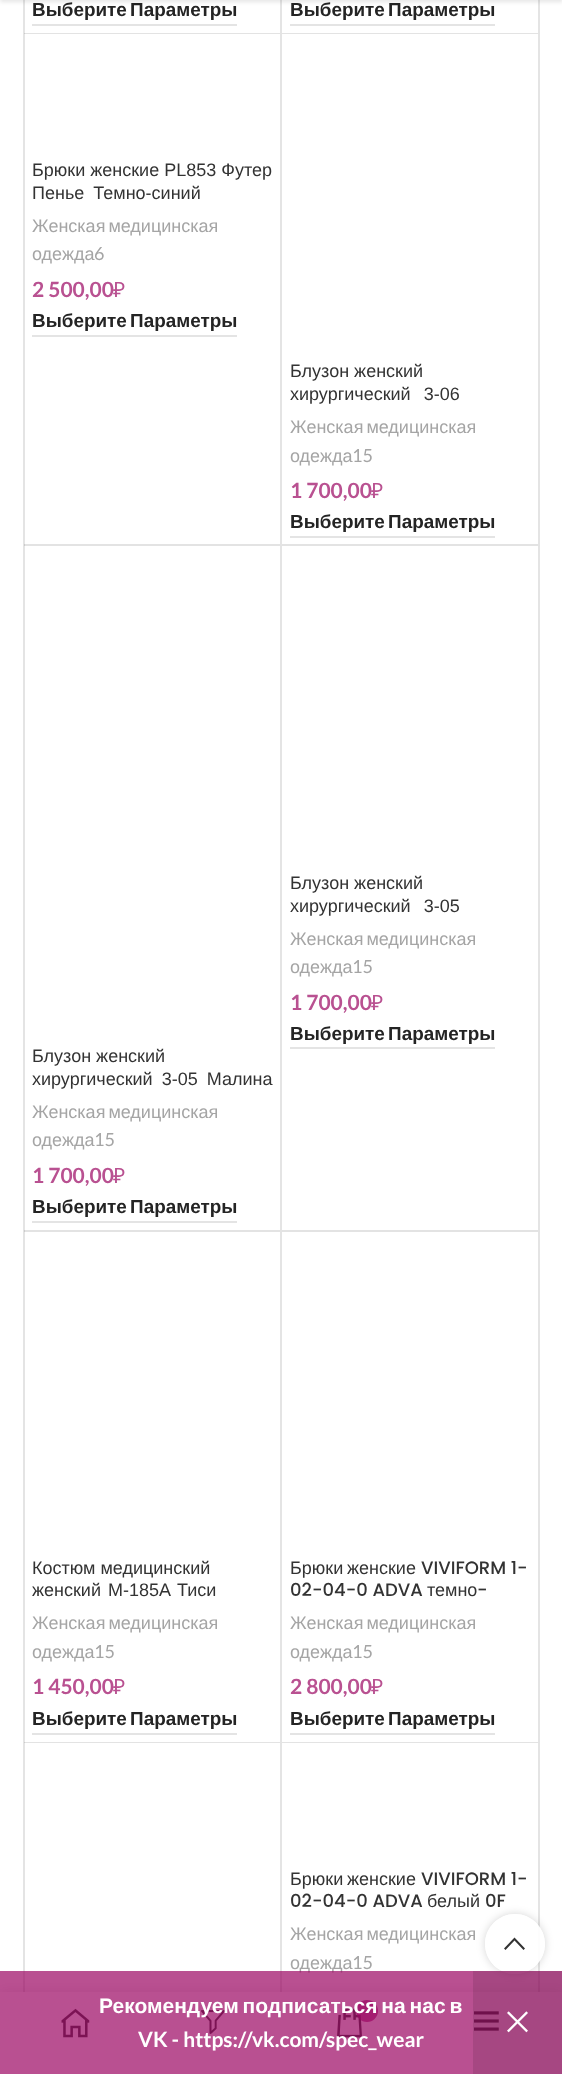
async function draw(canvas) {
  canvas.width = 562
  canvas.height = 2074
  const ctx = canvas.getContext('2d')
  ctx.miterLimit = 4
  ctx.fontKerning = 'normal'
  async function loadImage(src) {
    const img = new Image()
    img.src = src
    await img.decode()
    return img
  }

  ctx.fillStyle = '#fff'
  ctx.fillRect(0, 0, 562, 2074)
  ctx.fillStyle = '#e4e4e4'
  ctx.fillRect(23, 0, 2, 1992)
  ctx.beginPath()
  ctx.moveTo(282, -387)
  ctx.lineTo(282, 34)
  ctx.lineTo(280, 33)
  ctx.lineTo(280, -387)
  ctx.closePath()
  ctx.fill()
  ctx.beginPath()
  ctx.moveTo(540, -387)
  ctx.lineTo(540, 34)
  ctx.lineTo(538, 33)
  ctx.lineTo(538, -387)
  ctx.closePath()
  ctx.fill()
  ctx.fillStyle = '#0000001a'
  ctx.filter = 'blur(2px)'
  ctx.beginPath()
  ctx.rect(0, -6, 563, 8)
  ctx.fill()
  ctx.filter = 'none'
  ctx.fillStyle = '#0000001c'
  ctx.beginPath()
  ctx.moveTo(282, 34)
  ctx.lineTo(24, 34)
  ctx.lineTo(24, 33)
  ctx.lineTo(280, 33)
  ctx.closePath()
  ctx.fill()
  ctx.fillStyle = '#e4e4e4'
  ctx.fillRect(32, 24, 205, 2)
  ctx.wordSpacing = '-2px'
  ctx.font = 'bold 18.9px Liberation Sans'
  ctx.fillStyle = '#242424'
  ctx.fillText('Выберите Параметры', 32, 16)
  ctx.fillStyle = '#0000001c'
  ctx.beginPath()
  ctx.moveTo(540, 34)
  ctx.lineTo(282, 34)
  ctx.lineTo(282, 33)
  ctx.lineTo(538, 33)
  ctx.closePath()
  ctx.fill()
  ctx.fillStyle = '#e4e4e4'
  ctx.fillRect(290, 24, 205, 2)
  ctx.fillStyle = '#242424'
  ctx.fillText('Выберите Параметры', 290, 16)
  ctx.fillStyle = '#e4e4e4'
  ctx.beginPath()
  ctx.moveTo(282, 34)
  ctx.lineTo(282, 546)
  ctx.lineTo(280, 544)
  ctx.lineTo(280, 34)
  ctx.closePath()
  ctx.fill()
  ctx.fillStyle = '#0000001c'
  ctx.beginPath()
  ctx.moveTo(282, 546)
  ctx.lineTo(24, 546)
  ctx.lineTo(24, 544)
  ctx.lineTo(280, 544)
  ctx.closePath()
  ctx.fill()
  ctx.wordSpacing = '0px'
  ctx.font = '18px Liberation Sans'
  ctx.fillStyle = '#333'
  ctx.fillText('Брюки женские PL853 Футер', 32, 176)
  ctx.wordSpacing = '4px'
  ctx.fillText('Пенье Темно-синий', 32, 199)
  ctx.wordSpacing = '-2px'
  ctx.fillStyle = '#a5a5a5'
  ctx.fillText('Женская медицинская', 32, 232)
  ctx.wordSpacing = '0px'
  ctx.fillText('одежда', 32, 260)
  ctx.font = '18px Lato'
  ctx.fillText('6', 94, 260)
  ctx.font = 'bold 21px Lato'
  ctx.fillStyle = '#b95191'
  ctx.fillText('2 500,00', 32, 297)
  ctx.font = '21px Noto Sans'
  ctx.fillText('₽', 113, 297)
  ctx.fillStyle = '#e4e4e4'
  ctx.fillRect(32, 335, 205, 2)
  ctx.wordSpacing = '-2px'
  ctx.font = 'bold 18.9px Liberation Sans'
  ctx.fillStyle = '#242424'
  ctx.fillText('Выберите Параметры', 32, 327)
  ctx.fillStyle = '#e4e4e4'
  ctx.beginPath()
  ctx.moveTo(540, 34)
  ctx.lineTo(540, 546)
  ctx.lineTo(538, 544)
  ctx.lineTo(538, 34)
  ctx.closePath()
  ctx.fill()
  ctx.fillStyle = '#0000001c'
  ctx.beginPath()
  ctx.moveTo(540, 546)
  ctx.lineTo(282, 546)
  ctx.lineTo(282, 544)
  ctx.lineTo(538, 544)
  ctx.closePath()
  ctx.fill()
  ctx.wordSpacing = '0px'
  ctx.font = '18px Liberation Sans'
  ctx.fillStyle = '#333'
  ctx.fillText('Блузон женский', 290, 377)
  ctx.wordSpacing = '8px'
  ctx.fillText('хирургический 3-06', 290, 400)
  ctx.wordSpacing = '-2px'
  ctx.fillStyle = '#a5a5a5'
  ctx.fillText('Женская медицинская', 290, 433)
  ctx.wordSpacing = '0px'
  ctx.fillText('одежда', 290, 462)
  ctx.font = '18px Lato'
  ctx.fillText('15', 352, 462)
  ctx.font = 'bold 21px Lato'
  ctx.fillStyle = '#b95191'
  ctx.fillText('1 700,00', 290, 498)
  ctx.font = '21px Noto Sans'
  ctx.fillText('₽', 371, 498)
  ctx.fillStyle = '#e4e4e4'
  ctx.fillRect(290, 536, 205, 2)
  ctx.wordSpacing = '-2px'
  ctx.font = 'bold 18.9px Liberation Sans'
  ctx.fillStyle = '#242424'
  ctx.fillText('Выберите Параметры', 290, 528)
  ctx.fillStyle = '#e4e4e4'
  ctx.beginPath()
  ctx.moveTo(540, 546)
  ctx.lineTo(540, 1232)
  ctx.lineTo(538, 1230)
  ctx.lineTo(538, 546)
  ctx.closePath()
  ctx.fill()
  ctx.fillStyle = '#0000001c'
  ctx.beginPath()
  ctx.moveTo(540, 1232)
  ctx.lineTo(282, 1232)
  ctx.lineTo(282, 1230)
  ctx.lineTo(538, 1230)
  ctx.closePath()
  ctx.fill()
  ctx.wordSpacing = '0px'
  ctx.font = '18px Liberation Sans'
  ctx.fillStyle = '#333'
  ctx.fillText('Блузон женский', 290, 889)
  ctx.wordSpacing = '8px'
  ctx.fillText('хирургический 3-05', 290, 912)
  ctx.wordSpacing = '-2px'
  ctx.fillStyle = '#a5a5a5'
  ctx.fillText('Женская медицинская', 290, 945)
  ctx.wordSpacing = '0px'
  ctx.fillText('одежда', 290, 973)
  ctx.font = '18px Lato'
  ctx.fillText('15', 352, 973)
  ctx.font = 'bold 21px Lato'
  ctx.fillStyle = '#b95191'
  ctx.fillText('1 700,00', 290, 1010)
  ctx.font = '21px Noto Sans'
  ctx.fillText('₽', 371, 1010)
  ctx.fillStyle = '#e4e4e4'
  ctx.fillRect(290, 1047, 205, 2)
  ctx.wordSpacing = '-2px'
  ctx.font = 'bold 18.9px Liberation Sans'
  ctx.fillStyle = '#242424'
  ctx.fillText('Выберите Параметры', 290, 1040)
  ctx.fillStyle = '#e4e4e4'
  ctx.beginPath()
  ctx.moveTo(282, 546)
  ctx.lineTo(282, 1232)
  ctx.lineTo(280, 1230)
  ctx.lineTo(280, 546)
  ctx.closePath()
  ctx.fill()
  ctx.fillStyle = '#0000001c'
  ctx.beginPath()
  ctx.moveTo(282, 1232)
  ctx.lineTo(24, 1232)
  ctx.lineTo(24, 1230)
  ctx.lineTo(280, 1230)
  ctx.closePath()
  ctx.fill()
  ctx.wordSpacing = '0px'
  ctx.font = '18px Liberation Sans'
  ctx.fillStyle = '#333'
  ctx.fillText('Блузон женский', 32, 1062)
  ctx.wordSpacing = '4px'
  ctx.fillText('хирургический 3-05 Малина', 32, 1085)
  ctx.wordSpacing = '-2px'
  ctx.fillStyle = '#a5a5a5'
  ctx.fillText('Женская медицинская', 32, 1118)
  ctx.wordSpacing = '0px'
  ctx.fillText('одежда', 32, 1146)
  ctx.font = '18px Lato'
  ctx.fillText('15', 94, 1146)
  ctx.font = 'bold 21px Lato'
  ctx.fillStyle = '#b95191'
  ctx.fillText('1 700,00', 32, 1183)
  ctx.font = '21px Noto Sans'
  ctx.fillText('₽', 113, 1183)
  ctx.fillStyle = '#e4e4e4'
  ctx.fillRect(32, 1221, 205, 2)
  ctx.wordSpacing = '-2px'
  ctx.font = 'bold 18.9px Liberation Sans'
  ctx.fillStyle = '#242424'
  ctx.fillText('Выберите Параметры', 32, 1213)
  ctx.fillStyle = '#e4e4e4'
  ctx.beginPath()
  ctx.moveTo(282, 1232)
  ctx.lineTo(282, 1743)
  ctx.lineTo(280, 1742)
  ctx.lineTo(280, 1232)
  ctx.closePath()
  ctx.fill()
  ctx.fillStyle = '#0000001c'
  ctx.beginPath()
  ctx.moveTo(282, 1743)
  ctx.lineTo(24, 1743)
  ctx.lineTo(24, 1742)
  ctx.lineTo(280, 1742)
  ctx.closePath()
  ctx.fill()
  ctx.wordSpacing = '0px'
  ctx.font = '18px Liberation Sans'
  ctx.fillStyle = '#333'
  ctx.fillText('Костюм медицинский', 32, 1574)
  ctx.wordSpacing = '2px'
  ctx.fillText('женский М-185A Тиси', 32, 1596)
  ctx.wordSpacing = '-2px'
  ctx.fillStyle = '#a5a5a5'
  ctx.fillText('Женская медицинская', 32, 1629)
  ctx.wordSpacing = '0px'
  ctx.fillText('одежда', 32, 1658)
  ctx.font = '18px Lato'
  ctx.fillText('15', 94, 1658)
  ctx.font = 'bold 21px Lato'
  ctx.fillStyle = '#b95191'
  ctx.fillText('1 450,00', 32, 1694)
  ctx.font = '21px Noto Sans'
  ctx.fillText('₽', 113, 1694)
  ctx.fillStyle = '#e4e4e4'
  ctx.fillRect(32, 1733, 205, 2)
  ctx.wordSpacing = '-2px'
  ctx.font = 'bold 18.9px Liberation Sans'
  ctx.fillStyle = '#242424'
  ctx.fillText('Выберите Параметры', 32, 1725)
  ctx.fillStyle = '#e4e4e4'
  ctx.beginPath()
  ctx.moveTo(540, 1232)
  ctx.lineTo(540, 1743)
  ctx.lineTo(538, 1742)
  ctx.lineTo(538, 1232)
  ctx.closePath()
  ctx.fill()
  ctx.fillStyle = '#0000001c'
  ctx.beginPath()
  ctx.moveTo(540, 1743)
  ctx.lineTo(282, 1743)
  ctx.lineTo(282, 1742)
  ctx.lineTo(538, 1742)
  ctx.closePath()
  ctx.fill()
  ctx.wordSpacing = '0px'
  ctx.font = '18px Liberation Sans'
  ctx.fillStyle = '#333'
  ctx.fillText('Брюки', 290, 1574)
  ctx.fillText('женские', 347, 1574)
  ctx.font = '500 18px Poppins'
  ctx.fillText('VIVIFORM 1-', 421, 1574)
  ctx.fillText('02-04-0 ADVA', 290, 1596)
  ctx.font = '18px Liberation Sans'
  ctx.fillText('темно', 427, 1596)
  ctx.font = '500 18px Poppins'
  ctx.fillText('-', 477, 1596)
  ctx.wordSpacing = '-2px'
  ctx.font = '18px Liberation Sans'
  ctx.fillStyle = '#a5a5a5'
  ctx.fillText('Женская медицинская', 290, 1629)
  ctx.wordSpacing = '0px'
  ctx.fillText('одежда', 290, 1658)
  ctx.font = '18px Lato'
  ctx.fillText('15', 352, 1658)
  ctx.font = 'bold 21px Lato'
  ctx.fillStyle = '#b95191'
  ctx.fillText('2 800,00', 290, 1694)
  ctx.font = '21px Noto Sans'
  ctx.fillText('₽', 371, 1694)
  ctx.fillStyle = '#e4e4e4'
  ctx.fillRect(290, 1733, 205, 2)
  ctx.wordSpacing = '-2px'
  ctx.font = 'bold 18.9px Liberation Sans'
  ctx.fillStyle = '#242424'
  ctx.fillText('Выберите Параметры', 290, 1725)
  ctx.fillStyle = '#e4e4e4'
  ctx.beginPath()
  ctx.moveTo(282, 1743)
  ctx.lineTo(282, 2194)
  ctx.lineTo(280, 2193)
  ctx.lineTo(280, 1743)
  ctx.closePath()
  ctx.fill()
  ctx.beginPath()
  ctx.moveTo(540, 1743)
  ctx.lineTo(540, 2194)
  ctx.lineTo(538, 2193)
  ctx.lineTo(538, 1743)
  ctx.closePath()
  ctx.fill()
  ctx.wordSpacing = '0px'
  ctx.font = '18px Liberation Sans'
  ctx.fillStyle = '#333'
  ctx.fillText('Брюки', 290, 1885)
  ctx.fillText('женские', 347, 1885)
  ctx.font = '500 18px Poppins'
  ctx.fillText('VIVIFORM 1-', 421, 1885)
  ctx.fillText('02-04-0 ADVA', 290, 1907)
  ctx.font = '18px Liberation Sans'
  ctx.fillText('белый', 427, 1907)
  ctx.font = '500 18px Poppins'
  ctx.fillText('0F', 485, 1907)
  ctx.wordSpacing = '-2px'
  ctx.font = '18px Liberation Sans'
  ctx.fillStyle = '#a5a5a5'
  ctx.fillText('Женская медицинская', 290, 1940)
  ctx.wordSpacing = '0px'
  ctx.fillText('одежда', 290, 1969)
  ctx.font = '18px Lato'
  ctx.fillText('15', 352, 1969)
  ctx.save()
  ctx.beginPath()
  ctx.moveTo(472, 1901)
  ctx.lineTo(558, 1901)
  ctx.lineTo(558, 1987)
  ctx.lineTo(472, 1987)
  ctx.closePath()
  ctx.moveTo(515, 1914)
  ctx.bezierCurveTo(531.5, 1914, 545, 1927.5, 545, 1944)
  ctx.bezierCurveTo(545, 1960.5, 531.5, 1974, 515, 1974)
  ctx.bezierCurveTo(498.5, 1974, 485, 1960.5, 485, 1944)
  ctx.bezierCurveTo(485, 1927.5, 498.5, 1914, 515, 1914)
  ctx.closePath()
  ctx.clip('evenodd')
  ctx.fillStyle = '#0000002b'
  ctx.filter = 'blur(4px)'
  ctx.beginPath()
  ctx.roundRect(485, 1914, 60, 60, 30)
  ctx.fill()
  ctx.filter = 'none'
  ctx.restore()
  ctx.fillStyle = '#ffffffe6'
  ctx.beginPath()
  ctx.arc(515, 1944, 30, 0, 2 * Math.PI)
  ctx.fill()
  ctx.fillStyle = '#333'
  ctx.beginPath()
  ctx.moveTo(514.5, 1937.5)
  ctx.lineTo(525, 1948.5)
  ctx.lineTo(523.5, 1950)
  ctx.lineTo(514.5, 1940.5)
  ctx.lineTo(505.5, 1950)
  ctx.lineTo(504, 1948.5)
  ctx.closePath()
  ctx.fill()
  ctx.fillStyle = '#0000001f'
  ctx.filter = 'blur(7px)'
  ctx.beginPath()
  ctx.rect(0, 1992, 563, 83)
  ctx.fill()
  ctx.filter = 'none'
  ctx.fillStyle = '#fff'
  ctx.fillRect(0, 1992, 562, 82)
  ctx.drawImage(await loadImage('image0.png'), 61, 2008, 29, 30)
  ctx.drawImage(await loadImage('image1.png'), 201, 2010, 24, 24)
  ctx.drawImage(await loadImage('image2.png'), 337, 2007, 25, 31)
  ctx.fillStyle = '#9b0662b3'
  ctx.beginPath()
  ctx.arc(367, 2011, 11, 0, 2 * Math.PI)
  ctx.fill()
  ctx.drawImage(await loadImage('image3.png'), 474, 2011, 25, 20)
  ctx.fillRect(0, 1971, 562, 103)
  ctx.wordSpacing = '-2px'
  ctx.font = 'bold 21px Liberation Sans'
  ctx.fillStyle = '#fff'
  ctx.fillText('Рекомендуем подписаться на нас в', 99, 2013)
  ctx.fillStyle = '#0000001a'
  ctx.fillRect(473, 1971, 89, 103)
  ctx.drawImage(await loadImage('image4.png'), 507, 2011, 21, 22)
  ctx.wordSpacing = '0px'
  ctx.font = 'bold 21px Lato'
  ctx.fillStyle = '#fff'
  ctx.fillText('VK - https://vk.com/spec_wear', 138, 2047)
}

draw(document.querySelector('canvas'))
